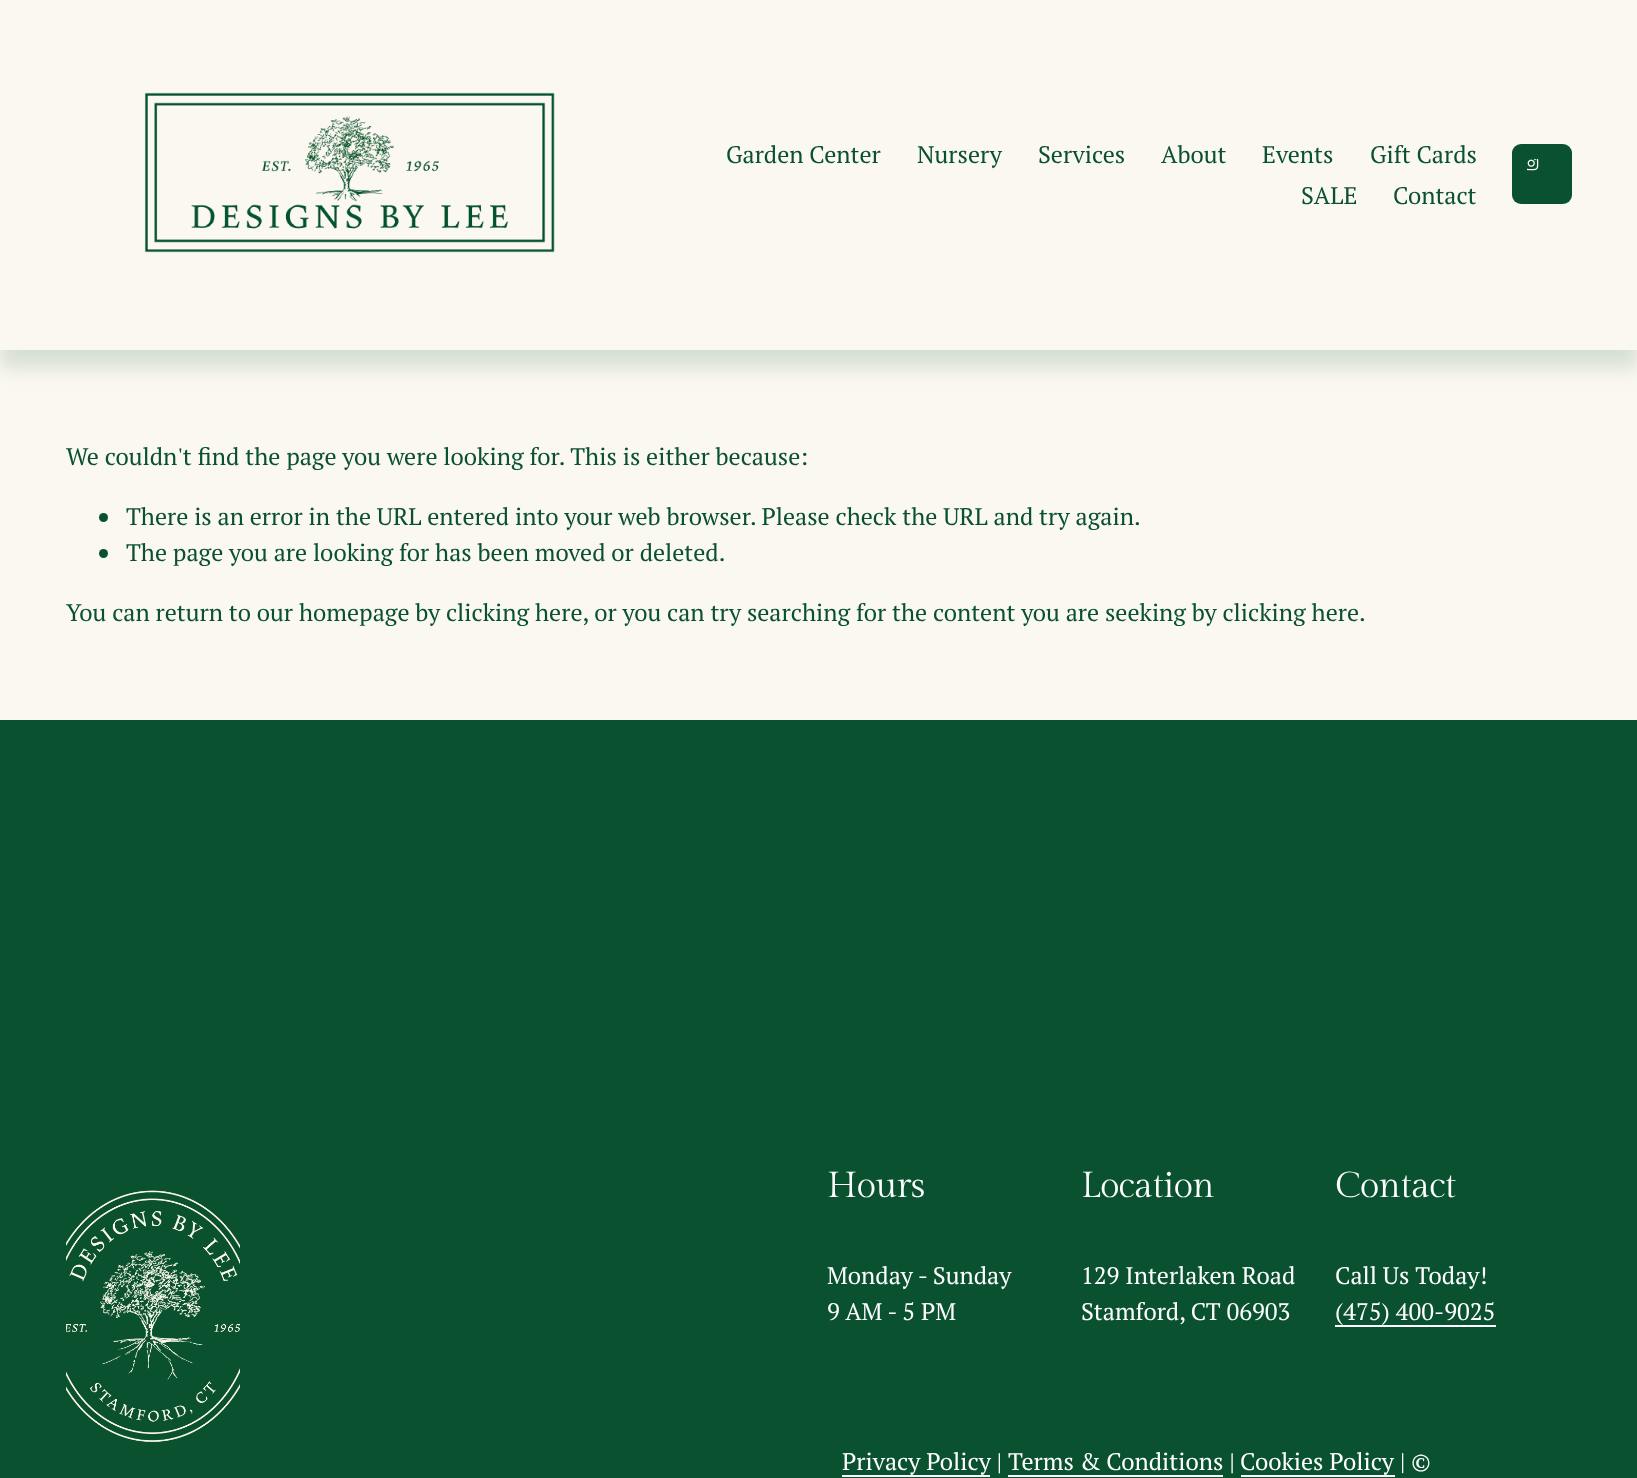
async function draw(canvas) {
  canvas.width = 1637
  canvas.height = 1478
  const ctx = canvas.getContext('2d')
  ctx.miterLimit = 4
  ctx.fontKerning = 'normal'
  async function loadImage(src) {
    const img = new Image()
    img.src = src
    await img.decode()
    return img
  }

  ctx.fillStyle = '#fbf8f1'
  ctx.fillRect(0, 0, 1637, 1478)
  ctx.save()
  ctx.beginPath()
  ctx.moveTo(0, 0)
  ctx.lineTo(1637, 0)
  ctx.lineTo(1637, 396)
  ctx.lineTo(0, 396)
  ctx.closePath()
  ctx.moveTo(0, 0)
  ctx.lineTo(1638, 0)
  ctx.lineTo(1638, 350)
  ctx.lineTo(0, 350)
  ctx.closePath()
  ctx.clip('evenodd')
  ctx.fillStyle = '#d7dfd4'
  ctx.filter = 'blur(9px)'
  ctx.beginPath()
  ctx.rect(0, 18, 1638, 350)
  ctx.fill()
  ctx.filter = 'none'
  ctx.restore()
  ctx.drawImage(await loadImage('image0.png'), 144, 92, 411, 161)
  ctx.font = '24px PT Serif'
  ctx.fillStyle = '#09512f'
  ctx.fillText('Garden Center', 726, 163)
  ctx.fillText('Nursery', 917, 163)
  ctx.fillText('Services', 1038, 163)
  ctx.fillText('About', 1161, 163)
  ctx.fillText('Events', 1262, 163)
  ctx.fillText('Gift Cards', 1370, 163)
  ctx.fillText('SALE', 1301, 204)
  ctx.fillText('Contact', 1393, 204)
  ctx.beginPath()
  ctx.roundRect(1512, 144, 60, 60, 9)
  ctx.fill()
  ctx.drawImage(await loadImage('image1.png'), 1527, 159, 12, 12)
  ctx.fillText('We couldn\'t find the page you were looking for. This is either because:', 66, 465)
  ctx.beginPath()
  ctx.arc(103.5, 517.5, 4.5, 0, 2 * Math.PI)
  ctx.fill()
  ctx.fillText('There is an error in the URL entered into your web browser. Please check the URL and try again.', 126, 525)
  ctx.beginPath()
  ctx.arc(103.5, 553.5, 4.5, 0, 2 * Math.PI)
  ctx.fill()
  ctx.fillText('The page you are looking for has been moved or deleted.', 126, 561)
  ctx.fillText('You can return to our homepage by clicking here, or you can try searching for the content you are seeking by clicking here.', 66, 621)
  ctx.fillRect(0, 720, 1637, 758)
  ctx.drawImage(await loadImage('image2.png'), 66, 1190, 174, 252)
  ctx.letterSpacing = '-0.75px'
  ctx.font = '36px Gilda Display'
  ctx.fillStyle = '#fff'
  ctx.fillText('Hours', 827, 1197)
  ctx.letterSpacing = '0px'
  ctx.font = '24px PT Serif'
  ctx.fillText('Monday - Sunday', 827, 1284)
  ctx.fillText('9 AM - 5 PM', 827, 1320)
  ctx.letterSpacing = '-0.75px'
  ctx.font = '36px Gilda Display'
  ctx.fillText('Location', 1081, 1197)
  ctx.letterSpacing = '0px'
  ctx.font = '24px PT Serif'
  ctx.fillText('129 Interlaken Road', 1081, 1284)
  ctx.fillText('Stamford, CT 06903', 1081, 1320)
  ctx.letterSpacing = '-0.75px'
  ctx.font = '36px Gilda Display'
  ctx.fillText('Contact', 1335, 1197)
  ctx.letterSpacing = '0px'
  ctx.font = '24px PT Serif'
  ctx.fillText('Call Us Today!', 1335, 1284)
  ctx.fillText('(475) 400-9025', 1335, 1320)
  ctx.fillRect(1335, 1325, 161, 2)
  ctx.fillRect(842, 1475, 148, 2)
  ctx.fillText('Privacy Policy | Terms & Conditions |', 842, 1470)
  ctx.fillRect(1241, 1475, 154, 2)
  ctx.fillText('Cookies Policy | ©', 1240, 1470)
  ctx.fillRect(1008, 1475, 215, 2)
}

draw(document.querySelector('canvas'))
